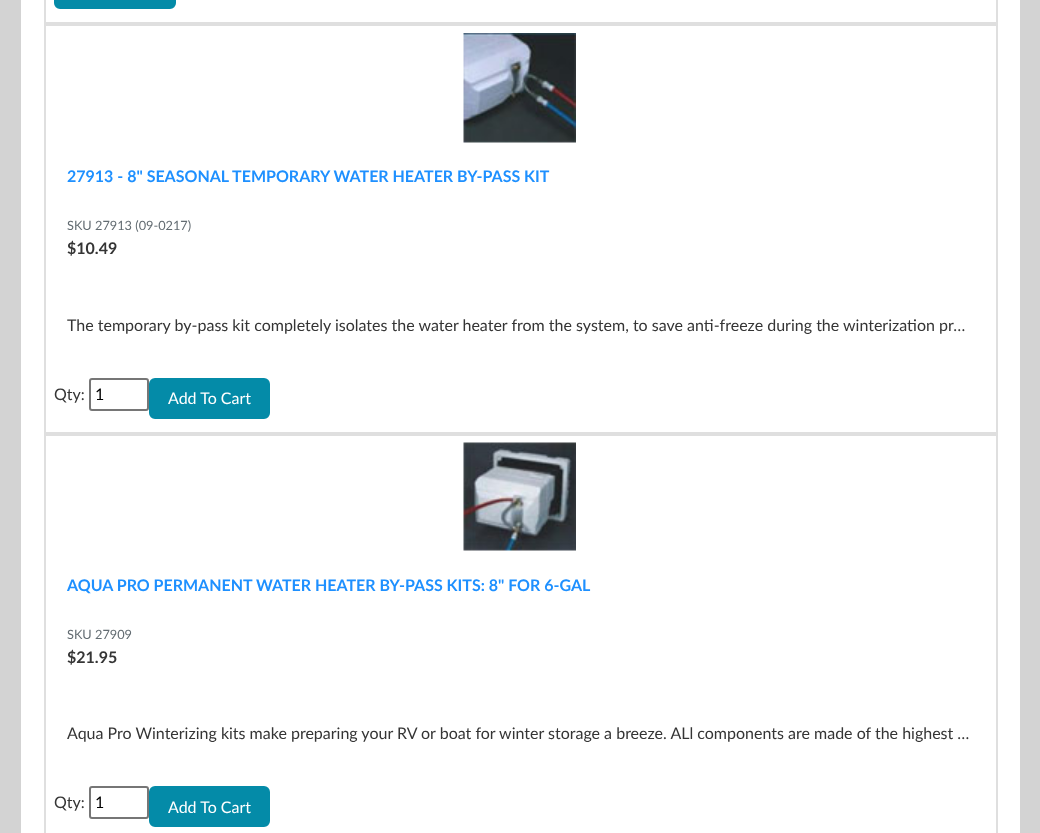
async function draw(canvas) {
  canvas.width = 1040
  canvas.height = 833
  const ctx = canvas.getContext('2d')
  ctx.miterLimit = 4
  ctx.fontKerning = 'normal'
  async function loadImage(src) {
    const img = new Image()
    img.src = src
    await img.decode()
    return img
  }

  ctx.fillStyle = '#d3d3d3'
  ctx.fillRect(0, 0, 1040, 833)
  ctx.fillStyle = '#fff'
  ctx.fillRect(21, 0, 999, 833)
  ctx.strokeStyle = '#dfdfdf'
  ctx.lineWidth = 2
  ctx.strokeRect(45, -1, 952, 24)
  ctx.fillStyle = '#048ba8'
  ctx.beginPath()
  ctx.roundRect(55, -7, 120, 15, 5)
  ctx.fill()
  ctx.strokeStyle = '#048ba8'
  ctx.stroke()
  ctx.strokeStyle = '#dfdfdf'
  ctx.strokeRect(45, 25, 952, 408)
  ctx.drawImage(await loadImage('image0.png'), 463, 33, 113, 110)
  ctx.font = 'bold 16px Lato'
  ctx.fillStyle = '#1e90ff'
  ctx.fillText('27913 - 8" SEASONAL TEMPORARY WATER HEATER BY-PASS KIT', 67, 182)
  ctx.font = '12.75px Lato'
  ctx.fillStyle = '#636c72'
  ctx.fillText('SKU 27913 (09-0217)', 67, 230)
  ctx.font = 'bold 16px Lato'
  ctx.fillStyle = '#353535'
  ctx.fillText('$10.49', 67, 254)
  ctx.font = '16px Lato'
  ctx.fillText('The temporary by-pass kit completely isolates the water heater from the system, to save anti-freeze during the winterization pr…', 67, 331)
  ctx.fillText('Qty:', 54, 400)
  ctx.beginPath()
  ctx.roundRect(90, 379, 58, 31, 2)
  ctx.strokeStyle = '#767676'
  ctx.stroke()
  ctx.fillStyle = '#000'
  ctx.fillText('1', 95, 400)
  ctx.fillStyle = '#048ba8'
  ctx.beginPath()
  ctx.roundRect(150, 379, 119, 39, 5)
  ctx.fill()
  ctx.strokeStyle = '#048ba8'
  ctx.stroke()
  ctx.fillStyle = '#fff'
  ctx.fillText('Add To Cart', 168, 404)
  ctx.strokeStyle = '#dfdfdf'
  ctx.strokeRect(45, 435, 952, 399)
  ctx.drawImage(await loadImage('image1.png'), 463, 442, 113, 109)
  ctx.font = 'bold 16px Lato'
  ctx.fillStyle = '#1e90ff'
  ctx.fillText('AQUA PRO PERMANENT WATER HEATER BY-PASS KITS: 8" FOR 6-GAL', 67, 591)
  ctx.font = '12.75px Lato'
  ctx.fillStyle = '#636c72'
  ctx.fillText('SKU 27909', 67, 639)
  ctx.font = 'bold 16px Lato'
  ctx.fillStyle = '#353535'
  ctx.fillText('$21.95', 67, 663)
  ctx.font = '16px Lato'
  ctx.fillText('Aqua Pro Winterizing kits make preparing your RV or boat for winter storage a breeze. ALl components are made of the highest …', 67, 739)
  ctx.fillText('Qty:', 54, 808)
  ctx.beginPath()
  ctx.roundRect(90, 787, 58, 31, 2)
  ctx.strokeStyle = '#767676'
  ctx.stroke()
  ctx.fillStyle = '#000'
  ctx.fillText('1', 95, 808)
  ctx.fillStyle = '#048ba8'
  ctx.beginPath()
  ctx.roundRect(150, 787, 119, 39, 5)
  ctx.fill()
  ctx.strokeStyle = '#048ba8'
  ctx.stroke()
  ctx.fillStyle = '#fff'
  ctx.fillText('Add To Cart', 168, 813)
}

draw(document.querySelector('canvas'))
